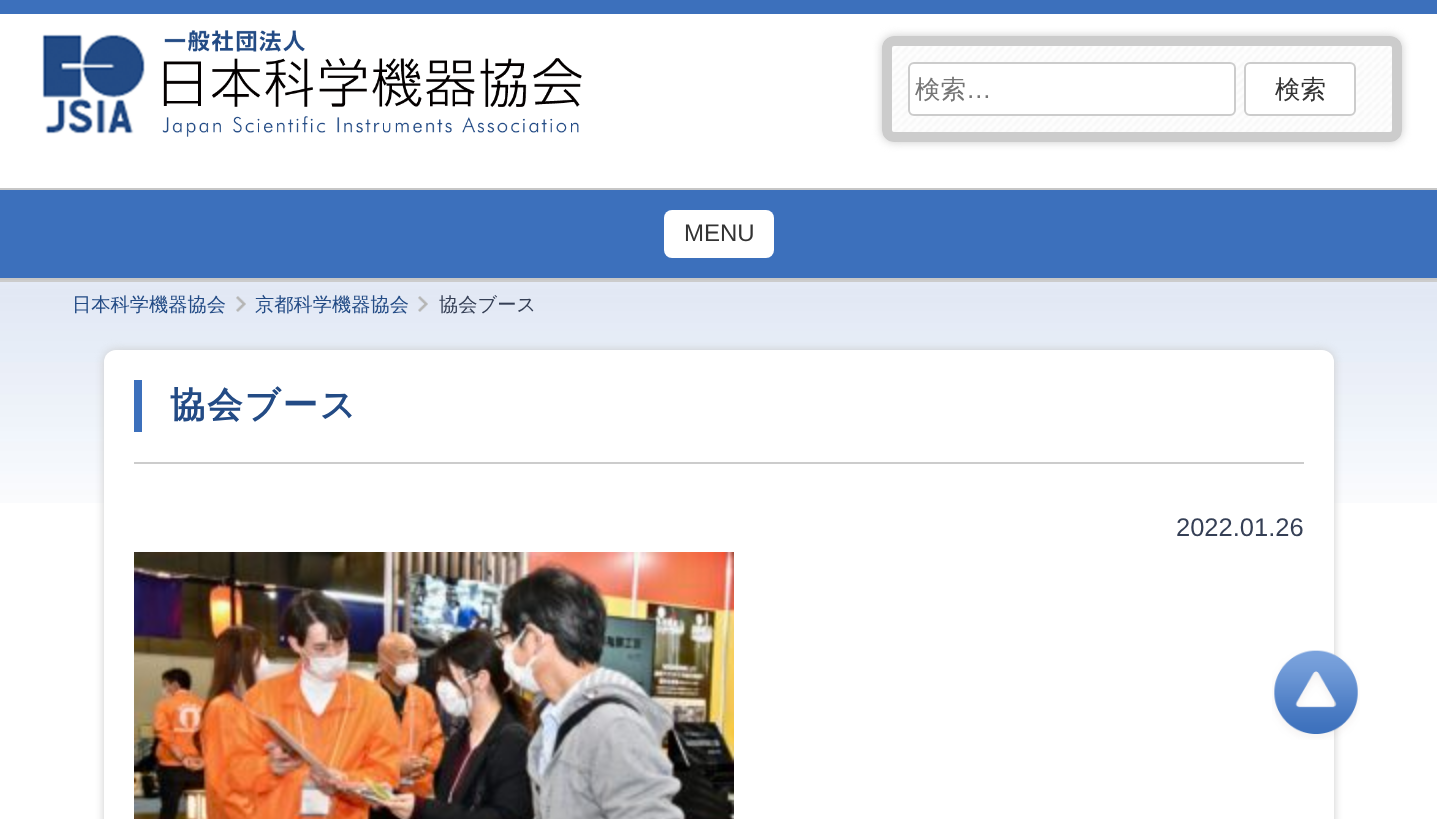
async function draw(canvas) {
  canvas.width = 1437
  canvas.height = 819
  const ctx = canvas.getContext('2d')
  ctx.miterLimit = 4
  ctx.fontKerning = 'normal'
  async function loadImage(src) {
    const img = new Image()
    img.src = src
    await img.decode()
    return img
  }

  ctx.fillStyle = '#fff'
  ctx.fillRect(0, 0, 1437, 819)
  ctx.fillStyle = '#3c70bc'
  ctx.fillRect(0, 0, 1437, 14)
  ctx.drawImage(await loadImage('image0.png'), 42, 30, 540, 107)
  ctx.fillStyle = '#ccc'
  ctx.filter = 'blur(5px)'
  ctx.beginPath()
  ctx.roundRect(882, 36, 520, 106, 12)
  ctx.fill()
  ctx.filter = 'none'
  ctx.drawImage(await loadImage('image1.png'), 882, 36, 520, 106)
  ctx.beginPath()
  ctx.roundRect(887, 41, 510, 96, 7)
  ctx.strokeStyle = '#ccc'
  ctx.lineWidth = 10
  ctx.stroke()
  ctx.fillStyle = '#fff'
  ctx.beginPath()
  ctx.roundRect(909, 63, 326, 52, 5)
  ctx.fill()
  ctx.lineWidth = 2
  ctx.stroke()
  ctx.font = '500 25.5px WenQuanYi Zen Hei'
  ctx.fillStyle = '#757575'
  ctx.fillText('検索', 915, 98)
  ctx.font = '25.5px Liberation Sans'
  ctx.fillText('…', 966, 98)
  ctx.fillStyle = '#fff'
  ctx.beginPath()
  ctx.roundRect(1245, 63, 110, 52, 5)
  ctx.fill()
  ctx.stroke()
  ctx.font = '500 25.5px WenQuanYi Zen Hei'
  ctx.fillStyle = '#333'
  ctx.fillText('検索', 1275, 98)
  ctx.fillStyle = '#3c70bc'
  ctx.fillRect(0, 190, 1437, 88)
  ctx.fillStyle = '#c7c7c7'
  ctx.fillRect(0, 188, 1437, 2)
  ctx.fillRect(0, 278, 1437, 2)
  ctx.fillStyle = '#fff'
  ctx.beginPath()
  ctx.roundRect(664, 210, 110, 48, 8)
  ctx.fill()
  ctx.font = '24px Liberation Sans'
  ctx.fillStyle = '#333'
  ctx.fillText('MENU', 684, 241)
  ctx.drawImage(await loadImage('image2.png'), 0, 282, 1437, 221)
  ctx.fillStyle = '#ccc'
  ctx.fillRect(0, 280, 1437, 2)
  ctx.font = '500 19.25px WenQuanYi Zen Hei'
  ctx.fillStyle = '#234b85'
  ctx.fillText('日本科学機器協会', 72, 311)
  ctx.drawImage(await loadImage('image3.png'), 236, 296, 10, 16)
  ctx.fillText('京都科学機器協会', 255, 311)
  ctx.drawImage(await loadImage('image3.png'), 418, 296, 10, 16)
  ctx.fillStyle = '#353f55'
  ctx.fillText('協会ブース', 439, 311)
  ctx.fillStyle = '#ccc'
  ctx.filter = 'blur(5px)'
  ctx.beginPath()
  ctx.roundRect(104, 350, 1230, 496, 12)
  ctx.fill()
  ctx.filter = 'none'
  ctx.fillStyle = '#fff'
  ctx.beginPath()
  ctx.roundRect(104, 350, 1230, 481, 12)
  ctx.fill()
  ctx.fillStyle = '#3c70bc'
  ctx.fillRect(134, 380, 8, 52)
  ctx.letterSpacing = '2px'
  ctx.font = 'bold 35.25px WenQuanYi Zen Hei'
  ctx.fillStyle = '#234b85'
  ctx.fillText('協会ブース', 170, 417)
  ctx.fillStyle = '#ccc'
  ctx.fillRect(134, 462, 1170, 2)
  ctx.letterSpacing = '0px'
  ctx.font = '25.5px Liberation Sans'
  ctx.fillStyle = '#353f55'
  ctx.fillText('2022.01.26', 1176, 536)
  ctx.drawImage(await loadImage('image4.png'), 134, 552, 600, 267)
  ctx.drawImage(await loadImage('image5.png'), 1272, 650, 88, 90)
}

draw(document.querySelector('canvas'))
